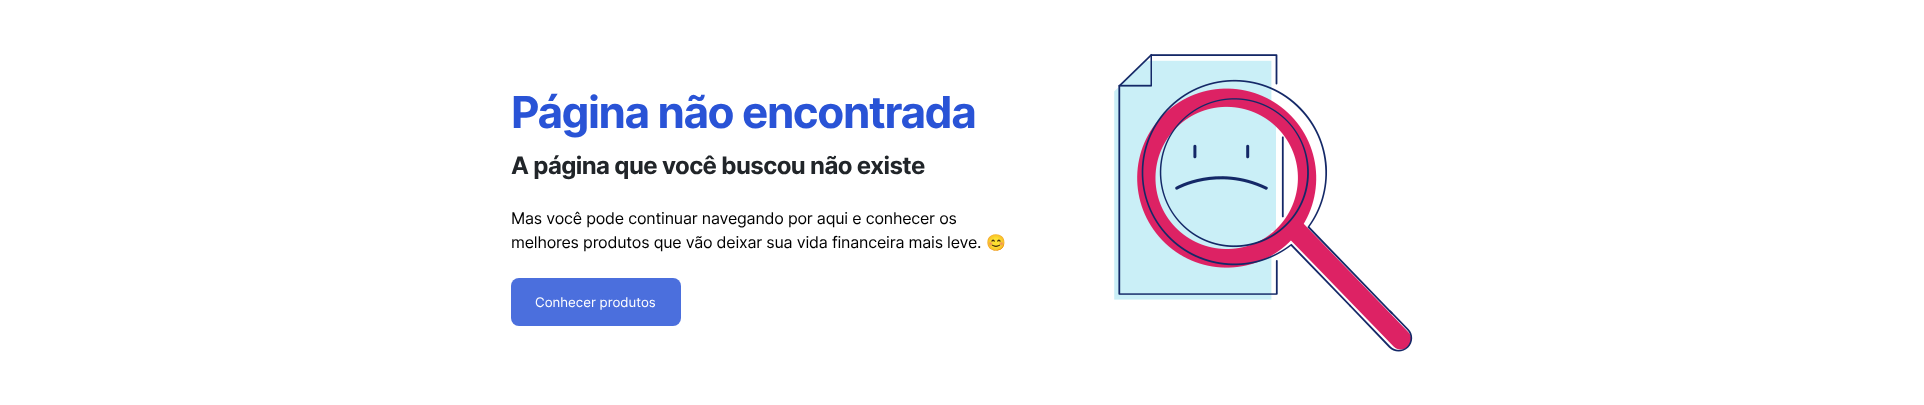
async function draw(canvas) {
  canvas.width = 1924
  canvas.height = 405
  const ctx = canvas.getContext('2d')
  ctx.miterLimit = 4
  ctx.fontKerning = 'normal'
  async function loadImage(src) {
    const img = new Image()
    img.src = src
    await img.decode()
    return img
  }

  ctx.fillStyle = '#fff'
  ctx.fillRect(0, 0, 1924, 405)
  ctx.letterSpacing = '-1.4px'
  ctx.font = 'bold 44px Inter'
  ctx.fillStyle = '#2953d6'
  ctx.fillText('Página não encontrada', 511, 128)
  ctx.letterSpacing = '-0.6px'
  ctx.font = 'bold 24px Inter'
  ctx.fillStyle = '#212529'
  ctx.fillText('A página que você buscou não existe', 511, 174)
  ctx.letterSpacing = '-0.2px'
  ctx.font = '16px Inter'
  ctx.fillStyle = '#000'
  ctx.fillText('Mas você pode continuar navegando por aqui e conhecer os', 511, 224)
  ctx.fillText('melhores produtos que vão deixar sua vida financeira mais leve.', 511, 248)
  ctx.font = '16px Noto Color Emoji'
  ctx.fillText('😊', 986, 248)
  ctx.fillStyle = '#4b6fdd'
  ctx.beginPath()
  ctx.roundRect(511, 278, 170, 48, 8)
  ctx.fill()
  ctx.letterSpacing = '0px'
  ctx.font = '13.25px Inter'
  ctx.fillStyle = '#fff'
  ctx.fillText('Conhecer produtos', 535, 307)
  ctx.drawImage(await loadImage('image0.png'), 1114, 53, 299, 299)
}

draw(document.querySelector('canvas'))
